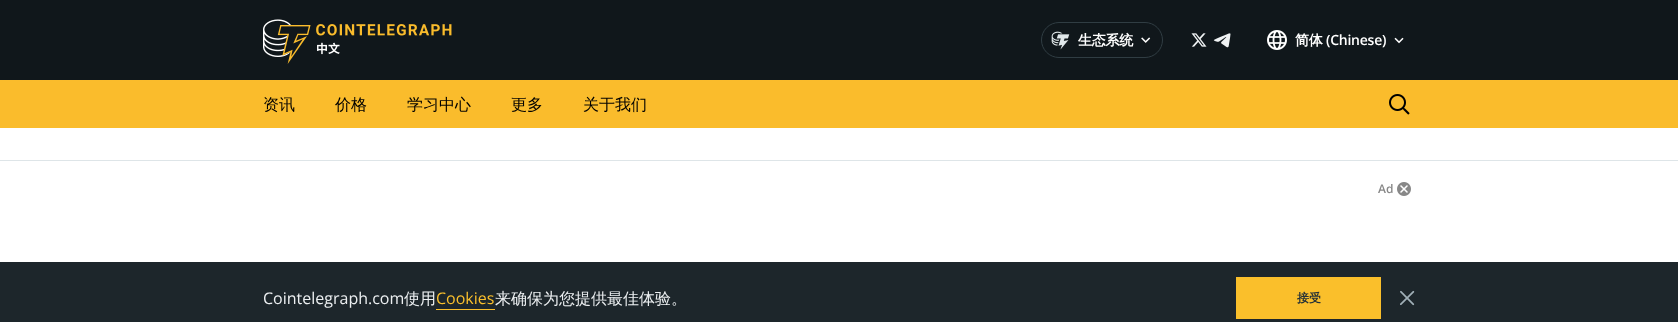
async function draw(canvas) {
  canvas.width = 1678
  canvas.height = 322
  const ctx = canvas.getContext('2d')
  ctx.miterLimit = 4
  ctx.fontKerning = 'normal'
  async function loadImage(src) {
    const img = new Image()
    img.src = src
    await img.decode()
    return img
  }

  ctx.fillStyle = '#fff'
  ctx.fillRect(0, 0, 1678, 322)
  ctx.fillStyle = '#10171b'
  ctx.fillRect(0, 0, 1678, 80)
  ctx.drawImage(await loadImage('image0.png'), 263, 19, 189, 45)
  ctx.beginPath()
  ctx.roundRect(1041.5, 22.5, 121, 35, 17.5)
  ctx.strokeStyle = '#303d43'
  ctx.stroke()
  ctx.drawImage(await loadImage('image1.png'), 1051, 31, 19, 19)
  ctx.letterSpacing = '-0.25px'
  ctx.font = 'bold 14px WenQuanYi Zen Hei'
  ctx.fillStyle = '#fff'
  ctx.fillText('生态系统', 1078, 45)
  ctx.drawImage(await loadImage('image2.png'), 1141, 37, 10, 6)
  ctx.drawImage(await loadImage('image3.png'), 1191, 33, 16, 14)
  ctx.drawImage(await loadImage('image4.png'), 1213, 33, 18, 15)
  ctx.drawImage(await loadImage('image5.png'), 1267, 30, 20, 20)
  ctx.fillText('简体', 1295, 45)
  ctx.font = '600 14px Open Sans'
  ctx.fillText('(Chinese)', 1326, 45)
  ctx.drawImage(await loadImage('image6.png'), 1394, 37, 10, 7)
  ctx.fillStyle = '#fabc2c'
  ctx.fillRect(0, 80, 1678, 48)
  ctx.letterSpacing = '0px'
  ctx.font = '500 16px WenQuanYi Zen Hei'
  ctx.fillStyle = '#000'
  ctx.fillText('资讯', 263, 110)
  ctx.fillText('价格', 335, 110)
  ctx.fillText('学习中心', 407, 110)
  ctx.fillText('更多', 511, 110)
  ctx.fillText('关于我们', 583, 110)
  ctx.drawImage(await loadImage('image7.png'), 1389, 94, 21, 21)
  ctx.fillStyle = '#dee5e8'
  ctx.fillRect(0, 160, 1678, 1)
  ctx.font = '600 12px Open Sans'
  ctx.fillStyle = '#888'
  ctx.fillText('Ad', 1378, 193)
  ctx.drawImage(await loadImage('image8.png'), 1397, 182, 14, 14)
  ctx.fillStyle = '#1d262b'
  ctx.fillRect(0, 262, 1678, 60)
  ctx.font = '16px Open Sans'
  ctx.fillStyle = '#eceff1'
  ctx.fillText('Cointelegraph.com', 263, 304)
  ctx.font = '500 16px WenQuanYi Zen Hei'
  ctx.fillText('使用', 404, 304)
  ctx.font = '16px Open Sans'
  ctx.fillStyle = '#fabf2c'
  ctx.fillText('Cookies', 436, 304)
  ctx.fillRect(436, 309, 59, 1)
  ctx.font = '500 16px WenQuanYi Zen Hei'
  ctx.fillStyle = '#eceff1'
  ctx.fillText('来确保为您提供最佳体验。', 495, 304)
  ctx.fillStyle = '#fabf2b'
  ctx.fillRect(1236, 277, 145, 42)
  ctx.save()
  ctx.beginPath()
  ctx.rect(1297, 290, 24, 16)
  ctx.clip()
  ctx.font = 'bold 12px WenQuanYi Zen Hei'
  ctx.fillStyle = '#253137'
  ctx.fillText('接受', 1297, 302)
  ctx.restore()
  ctx.drawImage(await loadImage('image9.png'), 1400, 290, 15, 16)
}

draw(document.querySelector('canvas'))
